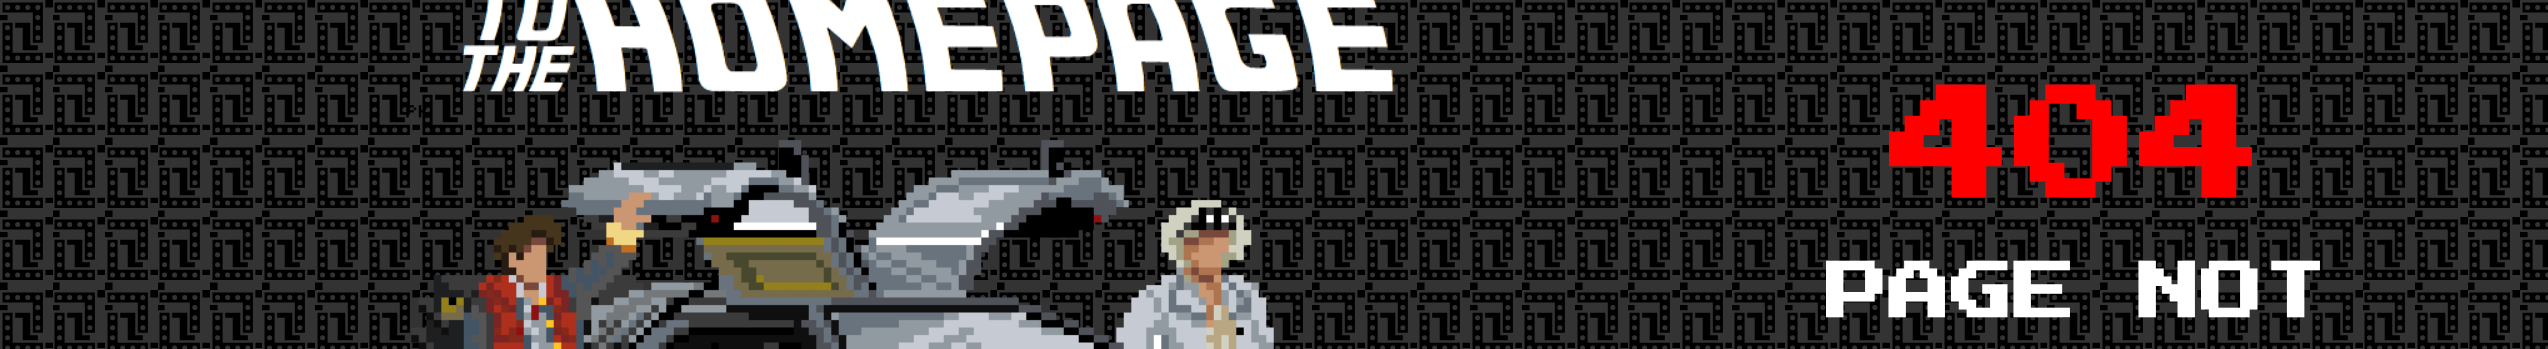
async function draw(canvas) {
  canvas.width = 2548
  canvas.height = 349
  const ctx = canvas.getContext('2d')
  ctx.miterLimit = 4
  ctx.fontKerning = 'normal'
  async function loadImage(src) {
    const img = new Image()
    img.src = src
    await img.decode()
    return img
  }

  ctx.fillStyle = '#000'
  ctx.fillRect(0, 0, 2548, 349)
  ctx.drawImage(await loadImage('image0.png'), 0, 0, 2548, 349)
  ctx.drawImage(await loadImage('image1.png'), 462, 0, 932, 93)
  ctx.drawImage(await loadImage('image2.png'), 406, 105, 868, 244)
  ctx.font = 'bold 125px "Press Start 2P"'
  ctx.fillStyle = '#f00'
  ctx.fillText('404', 1889, 213)
  ctx.font = 'bold 62.5px "Press Start 2P"'
  ctx.fillStyle = '#fff'
  ctx.fillText('PAGE NOT', 1826, 325)
}

draw(document.querySelector('canvas'))
